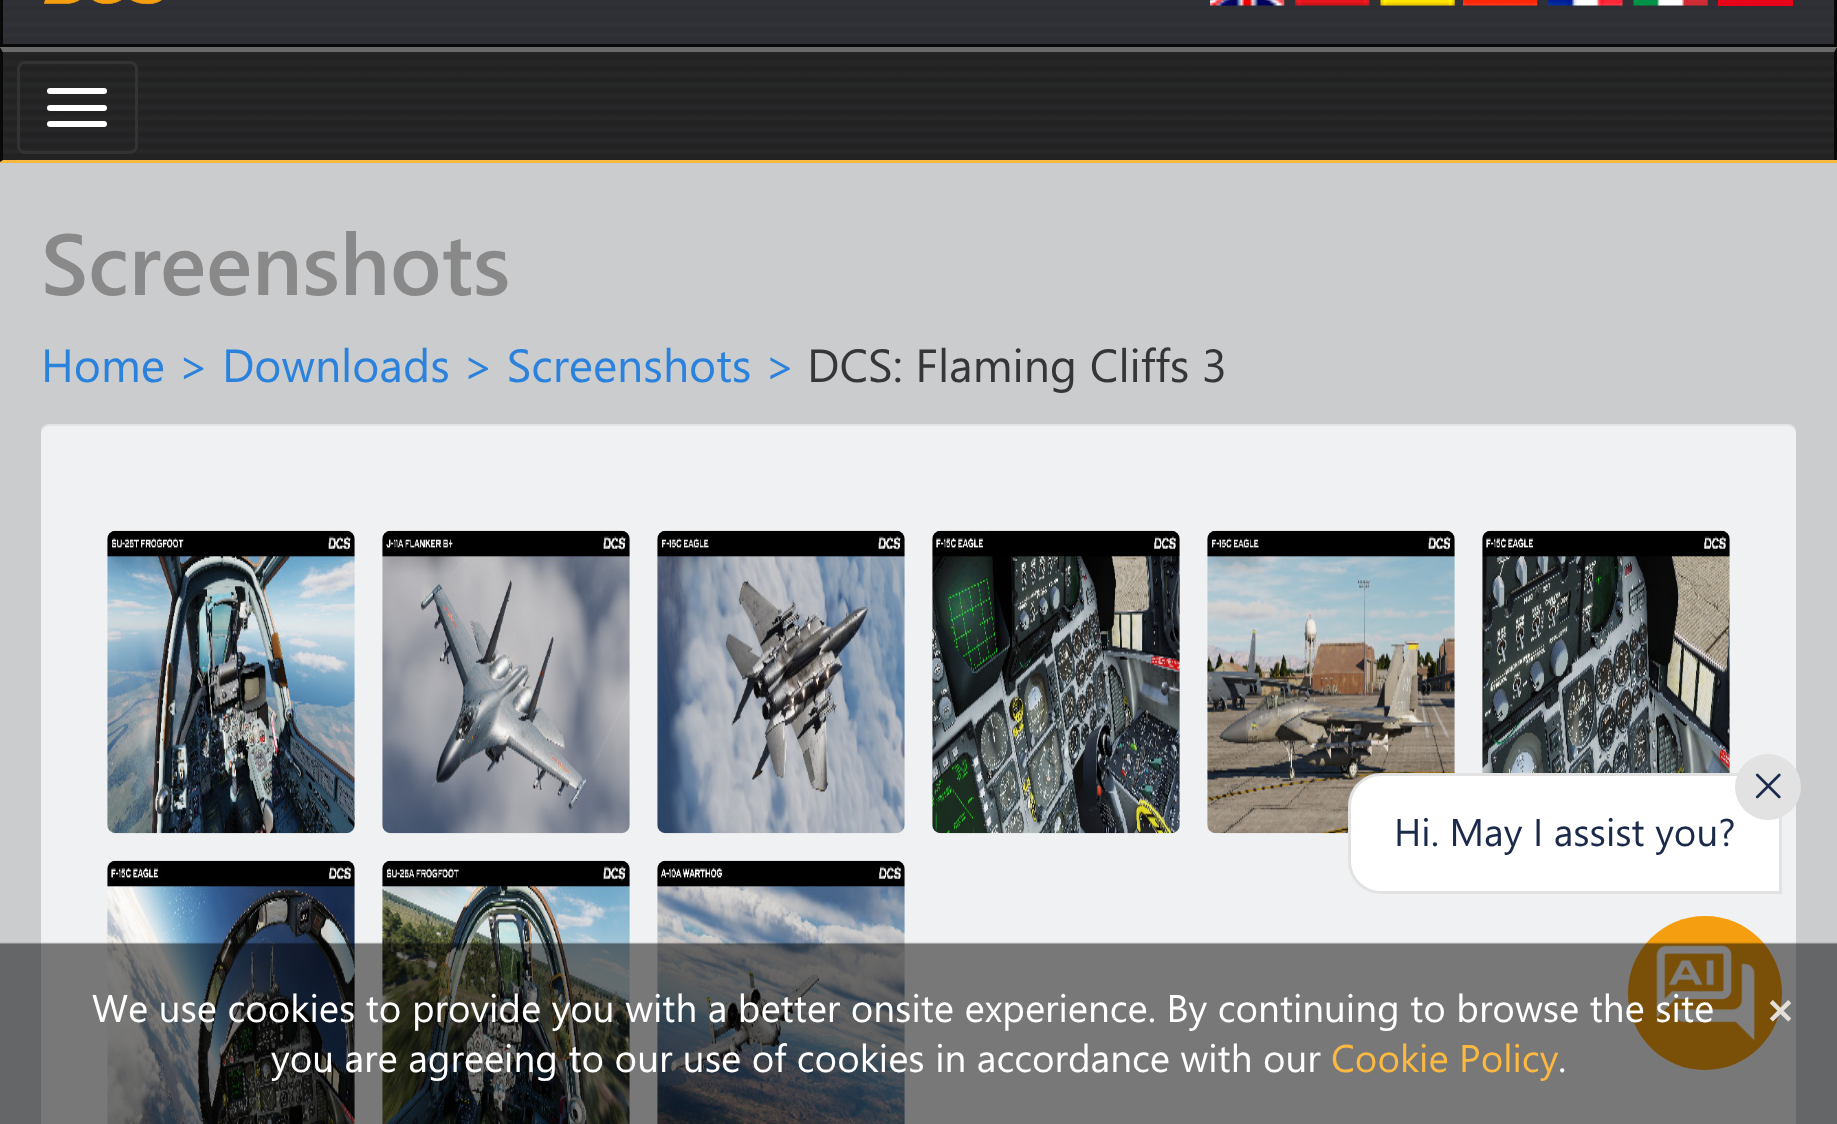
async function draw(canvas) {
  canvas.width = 1837
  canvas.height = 1124
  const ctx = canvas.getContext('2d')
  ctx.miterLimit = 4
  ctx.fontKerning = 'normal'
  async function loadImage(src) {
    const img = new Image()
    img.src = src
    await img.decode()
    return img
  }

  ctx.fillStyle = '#caccce'
  ctx.fillRect(0, 0, 1837, 1124)
  ctx.fillStyle = '#2e2f34'
  ctx.beginPath()
  ctx.rect(1.5, -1.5, 1834, 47)
  ctx.fill()
  ctx.strokeStyle = '#080808'
  ctx.lineWidth = 3
  ctx.stroke()
  ctx.drawImage(await loadImage('image0.png'), 3, 1, 1831, 36)
  ctx.drawImage(await loadImage('image1.png'), 44, 0, 118, 5)
  ctx.drawImage(await loadImage('image2.png'), 1210, 0, 75, 6)
  ctx.drawImage(await loadImage('image3.png'), 1295, 0, 75, 6)
  ctx.drawImage(await loadImage('image4.png'), 1380, 0, 75, 6)
  ctx.drawImage(await loadImage('image5.png'), 1463, 0, 75, 6)
  ctx.drawImage(await loadImage('image6.png'), 1548, 0, 75, 6)
  ctx.drawImage(await loadImage('image7.png'), 1633, 0, 75, 6)
  ctx.fillStyle = '#e70318'
  ctx.fillRect(1718, 0, 75, 6)
  ctx.fillStyle = '#222'
  ctx.fillRect(3, 52, 1831, 108)
  ctx.fillStyle = '#6a6a6a'
  ctx.beginPath()
  ctx.moveTo(0, 47)
  ctx.lineTo(1837, 47)
  ctx.lineTo(1834, 52)
  ctx.lineTo(3, 52)
  ctx.closePath()
  ctx.fill()
  ctx.fillStyle = '#080808'
  ctx.beginPath()
  ctx.moveTo(1837, 47)
  ctx.lineTo(1837, 162)
  ctx.lineTo(1834, 160)
  ctx.lineTo(1834, 52)
  ctx.closePath()
  ctx.fill()
  ctx.fillStyle = '#fbb840'
  ctx.fillRect(0, 160, 1837, 3)
  ctx.fillStyle = '#080808'
  ctx.beginPath()
  ctx.moveTo(0, 162)
  ctx.lineTo(0, 47)
  ctx.lineTo(3, 52)
  ctx.lineTo(3, 160)
  ctx.closePath()
  ctx.fill()
  ctx.drawImage(await loadImage('image8.png'), 3, 52, 1831, 102)
  ctx.beginPath()
  ctx.roundRect(18.5, 62.5, 118, 90, 6.5)
  ctx.strokeStyle = '#333'
  ctx.stroke()
  ctx.fillStyle = '#fff'
  ctx.beginPath()
  ctx.roundRect(47, 88, 60, 6, 3)
  ctx.fill()
  ctx.beginPath()
  ctx.roundRect(47, 105, 60, 6, 3)
  ctx.fill()
  ctx.beginPath()
  ctx.roundRect(47, 121, 60, 6, 3)
  ctx.fill()
  ctx.font = '600 86.5px Segoe UI'
  ctx.fillStyle = '#898989'
  ctx.fillText('Screenshots', 41, 295)
  ctx.font = '46.25px Segoe UI'
  ctx.fillStyle = '#2b82dc'
  ctx.fillText('Home > Downloads > Screenshots >', 41, 382)
  ctx.fillStyle = '#363636'
  ctx.fillText('DCS: Flaming Cliffs 3', 807, 382)
  ctx.fillStyle = '#f0f1f2'
  ctx.beginPath()
  ctx.roundRect(41, 424, 1755, 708, 8)
  ctx.fill()
  ctx.fillStyle = '#0000000d'
  ctx.beginPath()
  ctx.moveTo(50, 426)
  ctx.lineTo(1788, 426)
  ctx.bezierCurveTo(1792, 426, 1796, 430, 1796, 434)
  ctx.bezierCurveTo(1796, 429, 1794, 424, 1788, 424)
  ctx.lineTo(49, 424)
  ctx.bezierCurveTo(43, 424, 41, 429, 41, 434)
  ctx.bezierCurveTo(41, 430, 45, 426, 50, 426)
  ctx.closePath()
  ctx.fill()
  ctx.drawImage(await loadImage('image9.png'), 107, 530, 248, 304)
  ctx.drawImage(await loadImage('image10.png'), 382, 530, 248, 304)
  ctx.drawImage(await loadImage('image11.png'), 657, 530, 248, 304)
  ctx.drawImage(await loadImage('image12.png'), 932, 530, 248, 304)
  ctx.drawImage(await loadImage('image13.png'), 1207, 530, 248, 304)
  ctx.drawImage(await loadImage('image14.png'), 1482, 530, 248, 243)
  ctx.drawImage(await loadImage('image15.png'), 107, 860, 248, 264)
  ctx.drawImage(await loadImage('image16.png'), 382, 860, 248, 264)
  ctx.drawImage(await loadImage('image17.png'), 657, 860, 248, 264)
  ctx.fillStyle = '#fff'
  ctx.beginPath()
  ctx.roundRect(1349.5, 774.5, 431, 118, [31.5, 31.5, 0, 31.5])
  ctx.fill()
  ctx.strokeStyle = '#e2e2e2'
  ctx.stroke()
  ctx.fillStyle = '#e2e2e2'
  ctx.beginPath()
  ctx.arc(1768, 787, 33, 0, 2 * Math.PI)
  ctx.fill()
  ctx.drawImage(await loadImage('image18.png'), 1755, 773, 26, 26)
  ctx.font = '38.5px Segoe UI'
  ctx.fillStyle = '#1b2a4a'
  ctx.fillText('Hi. May I assist you?', 1394, 846)
  ctx.fillStyle = '#f59e0f'
  ctx.beginPath()
  ctx.arc(1705, 993, 77, 0, 2 * Math.PI)
  ctx.fill()
  ctx.drawImage(await loadImage('image19.png'), 1656, 945, 99, 96)
  ctx.drawImage(await loadImage('image20.png'), 0, 942, 1837, 182)
  ctx.fillStyle = '#fff'
  ctx.fillText('We use cookies to provide you with a better onsite experience. By continuing to browse the site', 92, 1022)
  ctx.fillText('you are agreeing to our use of cookies in accordance with our', 271, 1072)
  ctx.fillStyle = '#fcb941'
  ctx.fillText('Cookie Policy', 1331, 1072)
  ctx.fillStyle = '#fff'
  ctx.fillText('.', 1558, 1072)
  ctx.font = 'bold 46.25px Segoe UI'
  ctx.fillStyle = '#e4e0d9'
  ctx.fillText('×', 1764, 1025)
}

draw(document.querySelector('canvas'))
